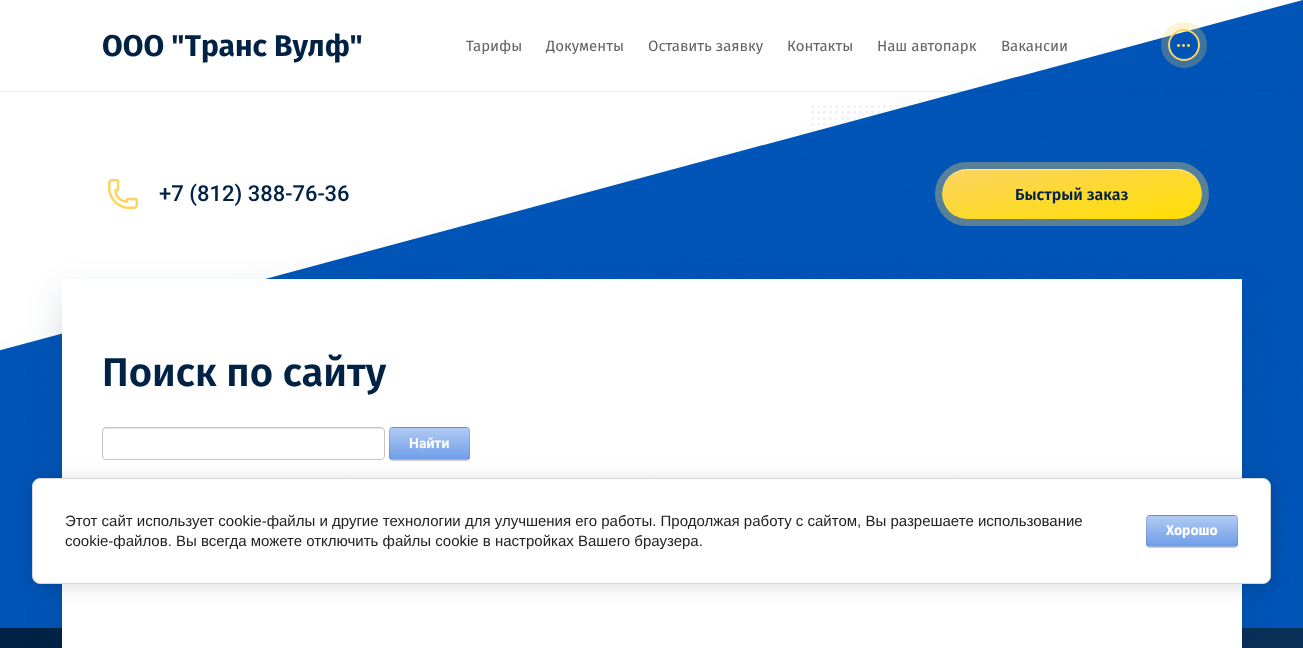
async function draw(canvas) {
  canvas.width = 1303
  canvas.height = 648
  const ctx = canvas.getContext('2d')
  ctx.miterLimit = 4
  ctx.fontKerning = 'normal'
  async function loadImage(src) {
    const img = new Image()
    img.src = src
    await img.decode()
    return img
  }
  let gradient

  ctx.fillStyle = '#fff'
  ctx.fillRect(0, 0, 1303, 648)
  ctx.drawImage(await loadImage('image0.png'), 0, 0, 1303, 628)
  ctx.fillStyle = '#00000012'
  ctx.fillRect(0, 91, 1303, 1)
  ctx.font = 'bold 30px Fira Sans'
  ctx.fillStyle = '#012244'
  ctx.fillText('ООО "Транс Вулф"', 102, 56)
  ctx.font = '15px Fira Sans'
  ctx.fillStyle = '#636363'
  ctx.fillText('Тарифы', 466, 51)
  ctx.fillText('Документы', 546, 51)
  ctx.fillText('Оставить заявку', 648, 51)
  ctx.fillText('Контакты', 787, 51)
  ctx.fillText('Наш автопарк', 877, 51)
  ctx.fillText('Вакансии', 1001, 51)
  ctx.beginPath()
  ctx.arc(1184, 45, 19.5, 0, 2 * Math.PI)
  ctx.strokeStyle = '#fcd56040'
  ctx.lineWidth = 7
  ctx.stroke()
  ctx.drawImage(await loadImage('image1.png'), 1177, 44, 13, 3)
  ctx.beginPath()
  ctx.arc(1184, 45, 15, 0, 2 * Math.PI)
  ctx.strokeStyle = '#fcd560'
  ctx.lineWidth = 2
  ctx.stroke()
  ctx.drawImage(await loadImage('image2.png'), 108, 179, 30, 30)
  ctx.font = '500 22px Roboto'
  ctx.fillStyle = '#012244'
  ctx.fillText('+7 (812) 388-76-36', 159, 201)
  ctx.beginPath()
  ctx.roundRect(938.5, 165.5, 267, 57, 28.5)
  ctx.strokeStyle = '#fbd46259'
  ctx.lineWidth = 7
  ctx.stroke()
  gradient = ctx.createLinearGradient(1063, 146, 1081, 242)
  gradient.addColorStop(0, '#fbd462')
  gradient.addColorStop(1, '#ffde00')
  ctx.fillStyle = gradient
  ctx.beginPath()
  ctx.roundRect(942, 169, 260, 50, 25)
  ctx.fill()
  ctx.fillStyle = '#ffffff82'
  ctx.beginPath()
  ctx.moveTo(967, 170)
  ctx.lineTo(1177, 170)
  ctx.bezierCurveTo(1191, 170, 1202, 181, 1202, 194)
  ctx.bezierCurveTo(1202, 180, 1191, 169, 1177, 169)
  ctx.lineTo(967, 169)
  ctx.bezierCurveTo(953, 169, 942, 180, 942, 194)
  ctx.bezierCurveTo(942, 181, 953, 170, 967, 170)
  ctx.closePath()
  ctx.fill()
  ctx.font = '600 16px Fira Sans'
  ctx.fillStyle = '#012244'
  ctx.fillText('Быстрый заказ', 1015, 200)
  ctx.fillRect(0, 628, 62, 20)
  ctx.drawImage(await loadImage('image3.png'), 1242, 628, 61, 20)
  ctx.fillStyle = '#01224426'
  ctx.filter = 'blur(17.5px)'
  ctx.beginPath()
  ctx.rect(62, 294, 1180, 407)
  ctx.fill()
  ctx.filter = 'none'
  ctx.fillStyle = '#fff'
  ctx.fillRect(62, 279, 1180, 369)
  ctx.font = '600 40px Fira Sans'
  ctx.fillStyle = '#012244'
  ctx.fillText('Поиск по сайту', 102, 386)
  ctx.fillStyle = '#e6e6e6'
  ctx.beginPath()
  ctx.moveTo(106, 429)
  ctx.lineTo(381, 429)
  ctx.bezierCurveTo(383, 429, 384, 430, 384, 432)
  ctx.lineTo(384, 431)
  ctx.bezierCurveTo(384, 429, 383, 428, 381, 428)
  ctx.lineTo(106, 428)
  ctx.bezierCurveTo(104, 428, 103, 429, 103, 431)
  ctx.lineTo(103, 432)
  ctx.bezierCurveTo(103, 430, 104, 429, 106, 429)
  ctx.closePath()
  ctx.fill()
  ctx.beginPath()
  ctx.roundRect(102.5, 427.5, 282, 32, 3.5)
  ctx.strokeStyle = '#c5c5c5'
  ctx.lineWidth = 1
  ctx.stroke()
  ctx.fillStyle = '#00000033'
  ctx.filter = 'blur(0.5px)'
  ctx.beginPath()
  ctx.roundRect(389, 428, 81, 33, 4)
  ctx.fill()
  ctx.filter = 'none'
  ctx.save()
  ctx.beginPath()
  ctx.roundRect(389, 427, 81, 33, 4)
  ctx.clip()
  gradient = ctx.createLinearGradient(430, 397, 430, 428)
  gradient.addColorStop(0, '#b1caf3')
  gradient.addColorStop(1, '#6f9ee8')
  ctx.fillStyle = gradient
  ctx.fillRect(389, 427, 81, 1)
  gradient = ctx.createLinearGradient(430, 428, 430, 459)
  gradient.addColorStop(0, '#b1caf3')
  gradient.addColorStop(1, '#6f9ee8')
  ctx.fillStyle = gradient
  ctx.fillRect(389, 428, 81, 31)
  gradient = ctx.createLinearGradient(430, 459, 430, 490)
  gradient.addColorStop(0, '#b1caf3')
  gradient.addColorStop(1, '#6f9ee8')
  ctx.fillStyle = gradient
  ctx.fillRect(389, 459, 81, 1)
  ctx.restore()
  ctx.beginPath()
  ctx.roundRect(389.5, 427.5, 80, 32, 3.5)
  ctx.strokeStyle = '#0000001a'
  ctx.stroke()
  ctx.font = 'bold 14px Roboto'
  ctx.fillStyle = '#fff'
  ctx.fillText('Найти', 409, 448)
  ctx.fillStyle = '#00000024'
  ctx.filter = 'blur(9px)'
  ctx.beginPath()
  ctx.roundRect(34, 480, 1239, 106, 8)
  ctx.fill()
  ctx.filter = 'none'
  ctx.fillStyle = '#fff'
  ctx.beginPath()
  ctx.roundRect(32.5, 478.5, 1238, 105, 7.5)
  ctx.fill()
  ctx.strokeStyle = '#d6d6d6'
  ctx.stroke()
  ctx.font = '15px Liberation Sans'
  ctx.fillStyle = '#212121'
  ctx.fillText('Этот сайт использует cookie-файлы и другие технологии для улучшения его работы. Продолжая работу с сайтом, Вы разрешаете использование', 65, 526)
  ctx.fillText('cookie-файлов. Вы всегда можете отключить файлы cookie в настройках Вашего браузера.', 65, 546)
  ctx.fillStyle = '#00000033'
  ctx.filter = 'blur(0.5px)'
  ctx.beginPath()
  ctx.roundRect(1146, 516, 92, 32, 4)
  ctx.fill()
  ctx.filter = 'none'
  ctx.save()
  ctx.beginPath()
  ctx.roundRect(1146, 515, 92, 32, 4)
  ctx.clip()
  gradient = ctx.createLinearGradient(1192, 486, 1192, 516)
  gradient.addColorStop(0, '#b1caf3')
  gradient.addColorStop(1, '#6f9ee8')
  ctx.fillStyle = gradient
  ctx.fillRect(1146, 515, 92, 1)
  gradient = ctx.createLinearGradient(1192, 516, 1192, 546)
  gradient.addColorStop(0, '#b1caf3')
  gradient.addColorStop(1, '#6f9ee8')
  ctx.fillStyle = gradient
  ctx.fillRect(1146, 516, 92, 30)
  gradient = ctx.createLinearGradient(1192, 546, 1192, 576)
  gradient.addColorStop(0, '#b1caf3')
  gradient.addColorStop(1, '#6f9ee8')
  ctx.fillStyle = gradient
  ctx.fillRect(1146, 546, 92, 1)
  ctx.restore()
  ctx.beginPath()
  ctx.roundRect(1146.5, 515.5, 91, 31, 3.5)
  ctx.strokeStyle = '#0000001a'
  ctx.stroke()
  ctx.font = 'bold 14px Fira Sans'
  ctx.fillStyle = '#fff'
  ctx.fillText('Хорошо', 1166, 535)
}

draw(document.querySelector('canvas'))
